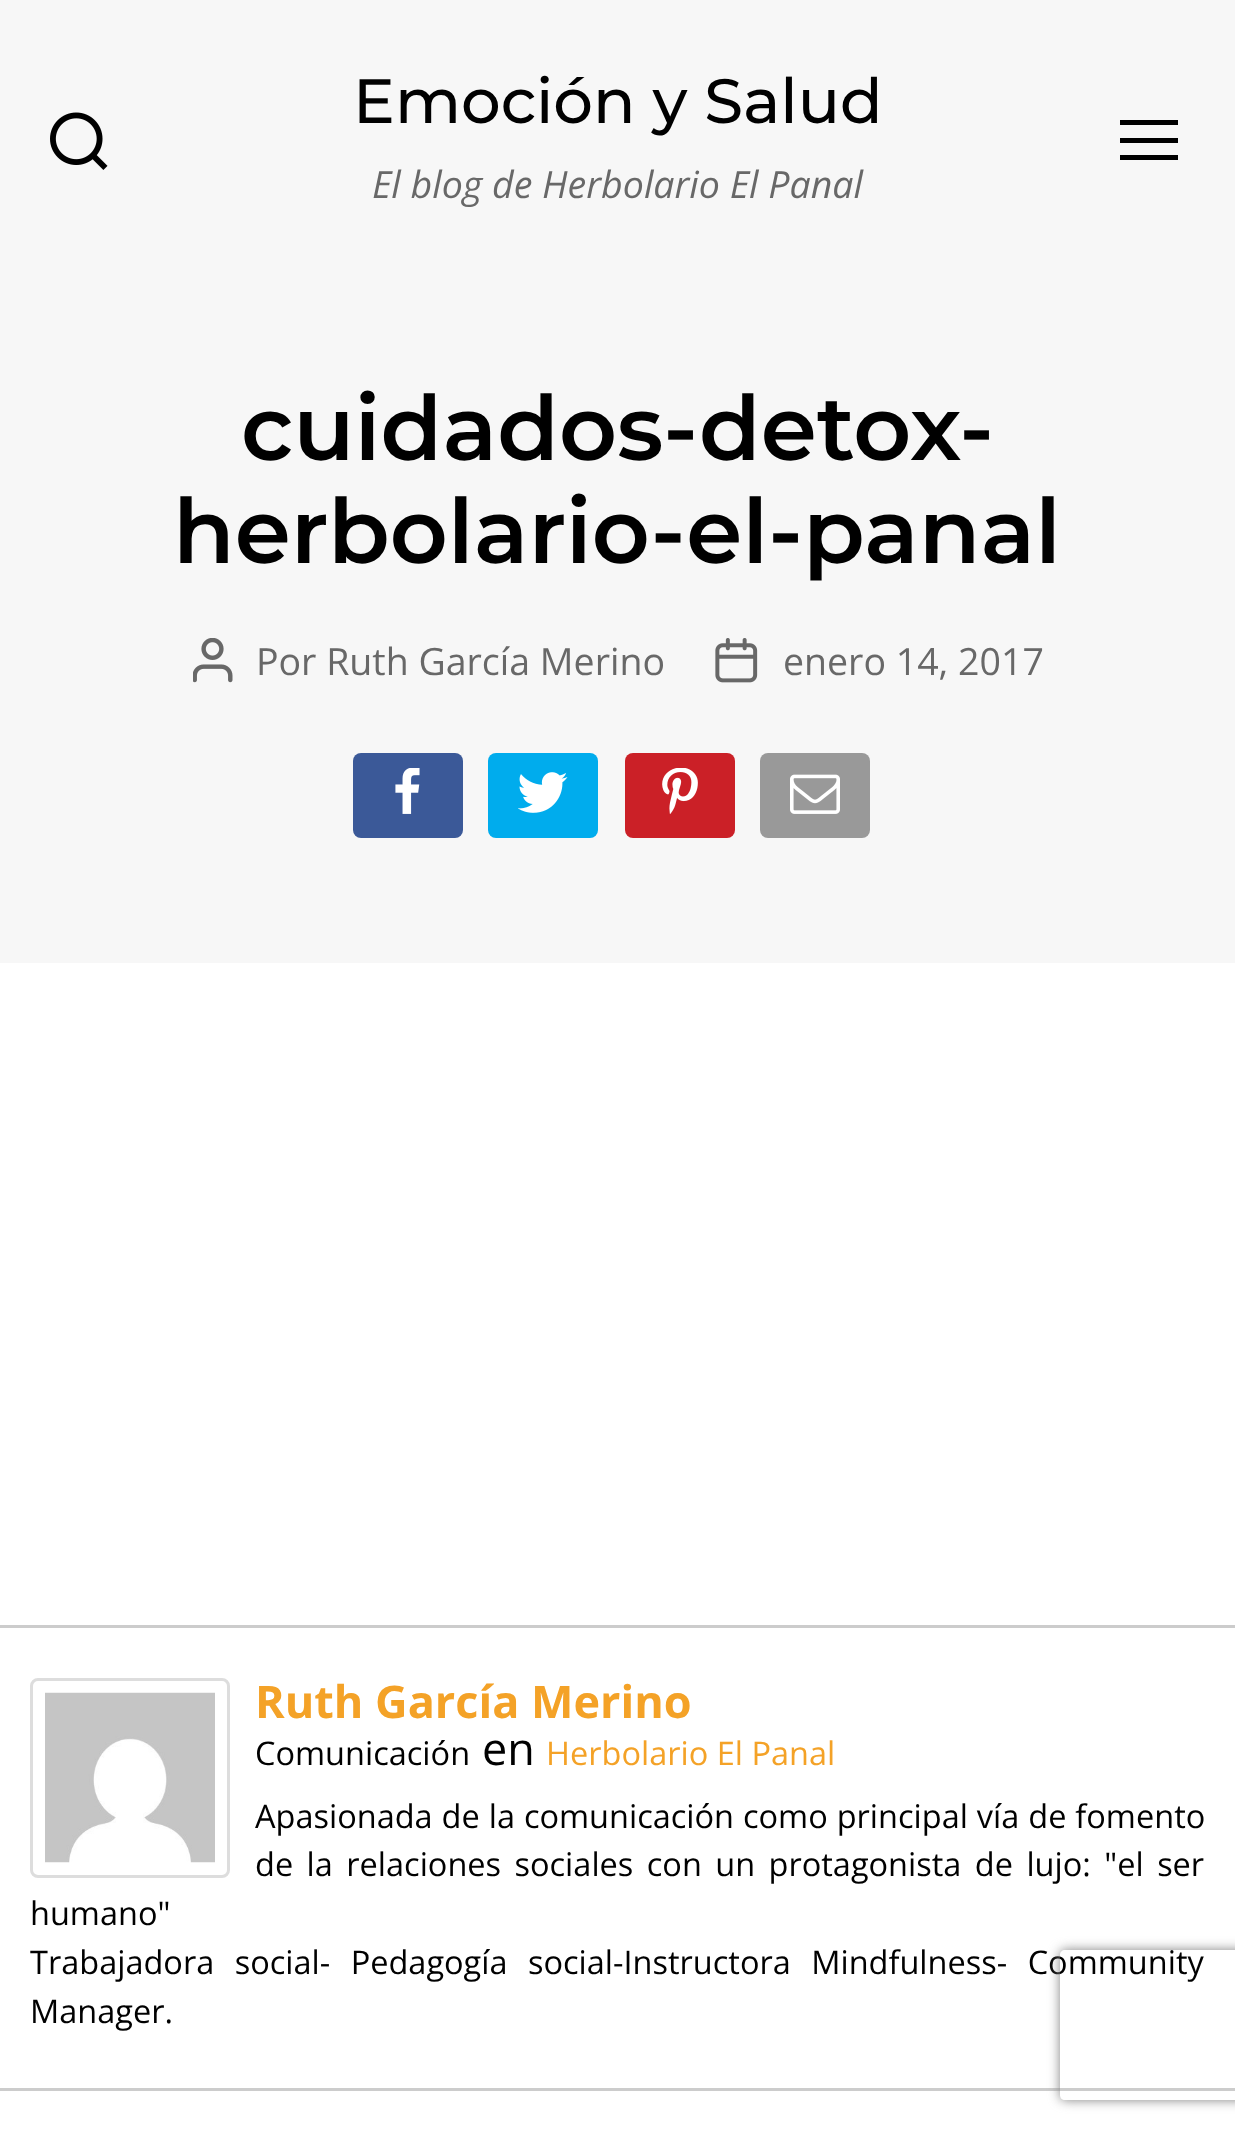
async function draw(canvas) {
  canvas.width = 1235
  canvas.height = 2133
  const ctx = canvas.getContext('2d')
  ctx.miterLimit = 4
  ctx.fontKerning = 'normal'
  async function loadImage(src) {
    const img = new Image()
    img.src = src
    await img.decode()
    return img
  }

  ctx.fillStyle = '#fff'
  ctx.fillRect(0, 0, 1235, 2133)
  ctx.fillStyle = '#f7f7f7'
  ctx.fillRect(0, 0, 1235, 963)
  ctx.drawImage(await loadImage('image0.png'), 50, 112, 58, 58)
  ctx.font = '500 62.5px Montserrat'
  ctx.fillStyle = '#000'
  ctx.fillText('Emoción y Salud', 353, 123)
  ctx.font = 'italic 37.5px Open Sans'
  ctx.fillStyle = '#686868'
  ctx.fillText('El blog de Herbolario El Panal', 372, 198)
  ctx.fillStyle = '#000'
  ctx.fillRect(1120, 120, 58, 5)
  ctx.fillRect(1120, 155, 58, 5)
  ctx.fillRect(1120, 138, 58, 5)
  ctx.font = '600 90px Montserrat'
  ctx.fillText('cuidados-detox-', 241, 460)
  ctx.fillText('herbolario-el-panal', 173, 563)
  ctx.drawImage(await loadImage('image1.png'), 193, 638, 40, 45)
  ctx.font = '37.5px Open Sans'
  ctx.fillStyle = '#686868'
  ctx.fillText('Por Ruth García Merino', 256, 675)
  ctx.drawImage(await loadImage('image2.png'), 715, 638, 43, 45)
  ctx.fillText('enero 14, 2017', 783, 675)
  ctx.fillStyle = '#3b5998'
  ctx.beginPath()
  ctx.roundRect(353, 753, 110, 85, 8)
  ctx.fill()
  ctx.drawImage(await loadImage('image3.png'), 395, 768, 25, 46)
  ctx.fillStyle = '#00aced'
  ctx.beginPath()
  ctx.roundRect(488, 753, 110, 85, 8)
  ctx.fill()
  ctx.drawImage(await loadImage('image4.png'), 518, 772, 50, 41)
  ctx.fillStyle = '#cb2027'
  ctx.beginPath()
  ctx.roundRect(625, 753, 110, 85, 8)
  ctx.fill()
  ctx.drawImage(await loadImage('image5.png'), 662, 768, 36, 46)
  ctx.fillStyle = '#999'
  ctx.beginPath()
  ctx.roundRect(760, 753, 110, 85, 8)
  ctx.fill()
  ctx.drawImage(await loadImage('image6.png'), 790, 774, 50, 40)
  ctx.fillStyle = '#ccc'
  ctx.fillRect(0, 1625, 1235, 3)
  ctx.fillRect(0, 2088, 1235, 3)
  ctx.beginPath()
  ctx.roundRect(31.5, 1679.5, 197, 197, 6.5)
  ctx.strokeStyle = '#ddd'
  ctx.lineWidth = 3
  ctx.stroke()
  ctx.drawImage(await loadImage('image7.png'), 45, 1692, 170, 171)
  ctx.font = 'bold 45px Open Sans'
  ctx.fillStyle = '#f4a227'
  ctx.fillText('Ruth García Merino', 255, 1718)
  ctx.font = '32.5px Open Sans'
  ctx.fillStyle = '#000'
  ctx.fillText('Comunicación', 255, 1765)
  ctx.font = '45px Open Sans'
  ctx.fillText('en', 482, 1765)
  ctx.font = '32.5px Open Sans'
  ctx.fillStyle = '#f4a227'
  ctx.fillText('Herbolario El Panal', 546, 1765)
  ctx.wordSpacing = '0.5px'
  ctx.fillStyle = '#000'
  ctx.fillText('Apasionada de la comunicación como principal vía de fomento', 255, 1828)
  ctx.wordSpacing = '5px'
  ctx.fillText('de la relaciones sociales con un protagonista de lujo: "el ser', 255, 1876)
  ctx.wordSpacing = '0px'
  ctx.fillText('humano"', 30, 1925)
  ctx.wordSpacing = '12px'
  ctx.fillText('Trabajadora social- Pedagogía social-Instructora Mindfulness- Community', 30, 1974)
  ctx.wordSpacing = '0px'
  ctx.fillText('Manager.', 30, 2023)
  ctx.save()
  ctx.beginPath()
  ctx.moveTo(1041, 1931)
  ctx.lineTo(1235, 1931)
  ctx.lineTo(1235, 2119)
  ctx.lineTo(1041, 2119)
  ctx.closePath()
  ctx.moveTo(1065, 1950)
  ctx.lineTo(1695, 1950)
  ctx.bezierCurveTo(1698, 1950, 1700, 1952, 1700, 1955)
  ctx.lineTo(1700, 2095)
  ctx.bezierCurveTo(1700, 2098, 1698, 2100, 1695, 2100)
  ctx.lineTo(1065, 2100)
  ctx.bezierCurveTo(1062, 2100, 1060, 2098, 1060, 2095)
  ctx.lineTo(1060, 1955)
  ctx.bezierCurveTo(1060, 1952, 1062, 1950, 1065, 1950)
  ctx.closePath()
  ctx.clip('evenodd')
  ctx.fillStyle = '#808080'
  ctx.filter = 'blur(6px)'
  ctx.beginPath()
  ctx.roundRect(1060, 1950, 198, 150, 5)
  ctx.fill()
  ctx.filter = 'none'
  ctx.restore()
}

draw(document.querySelector('canvas'))
